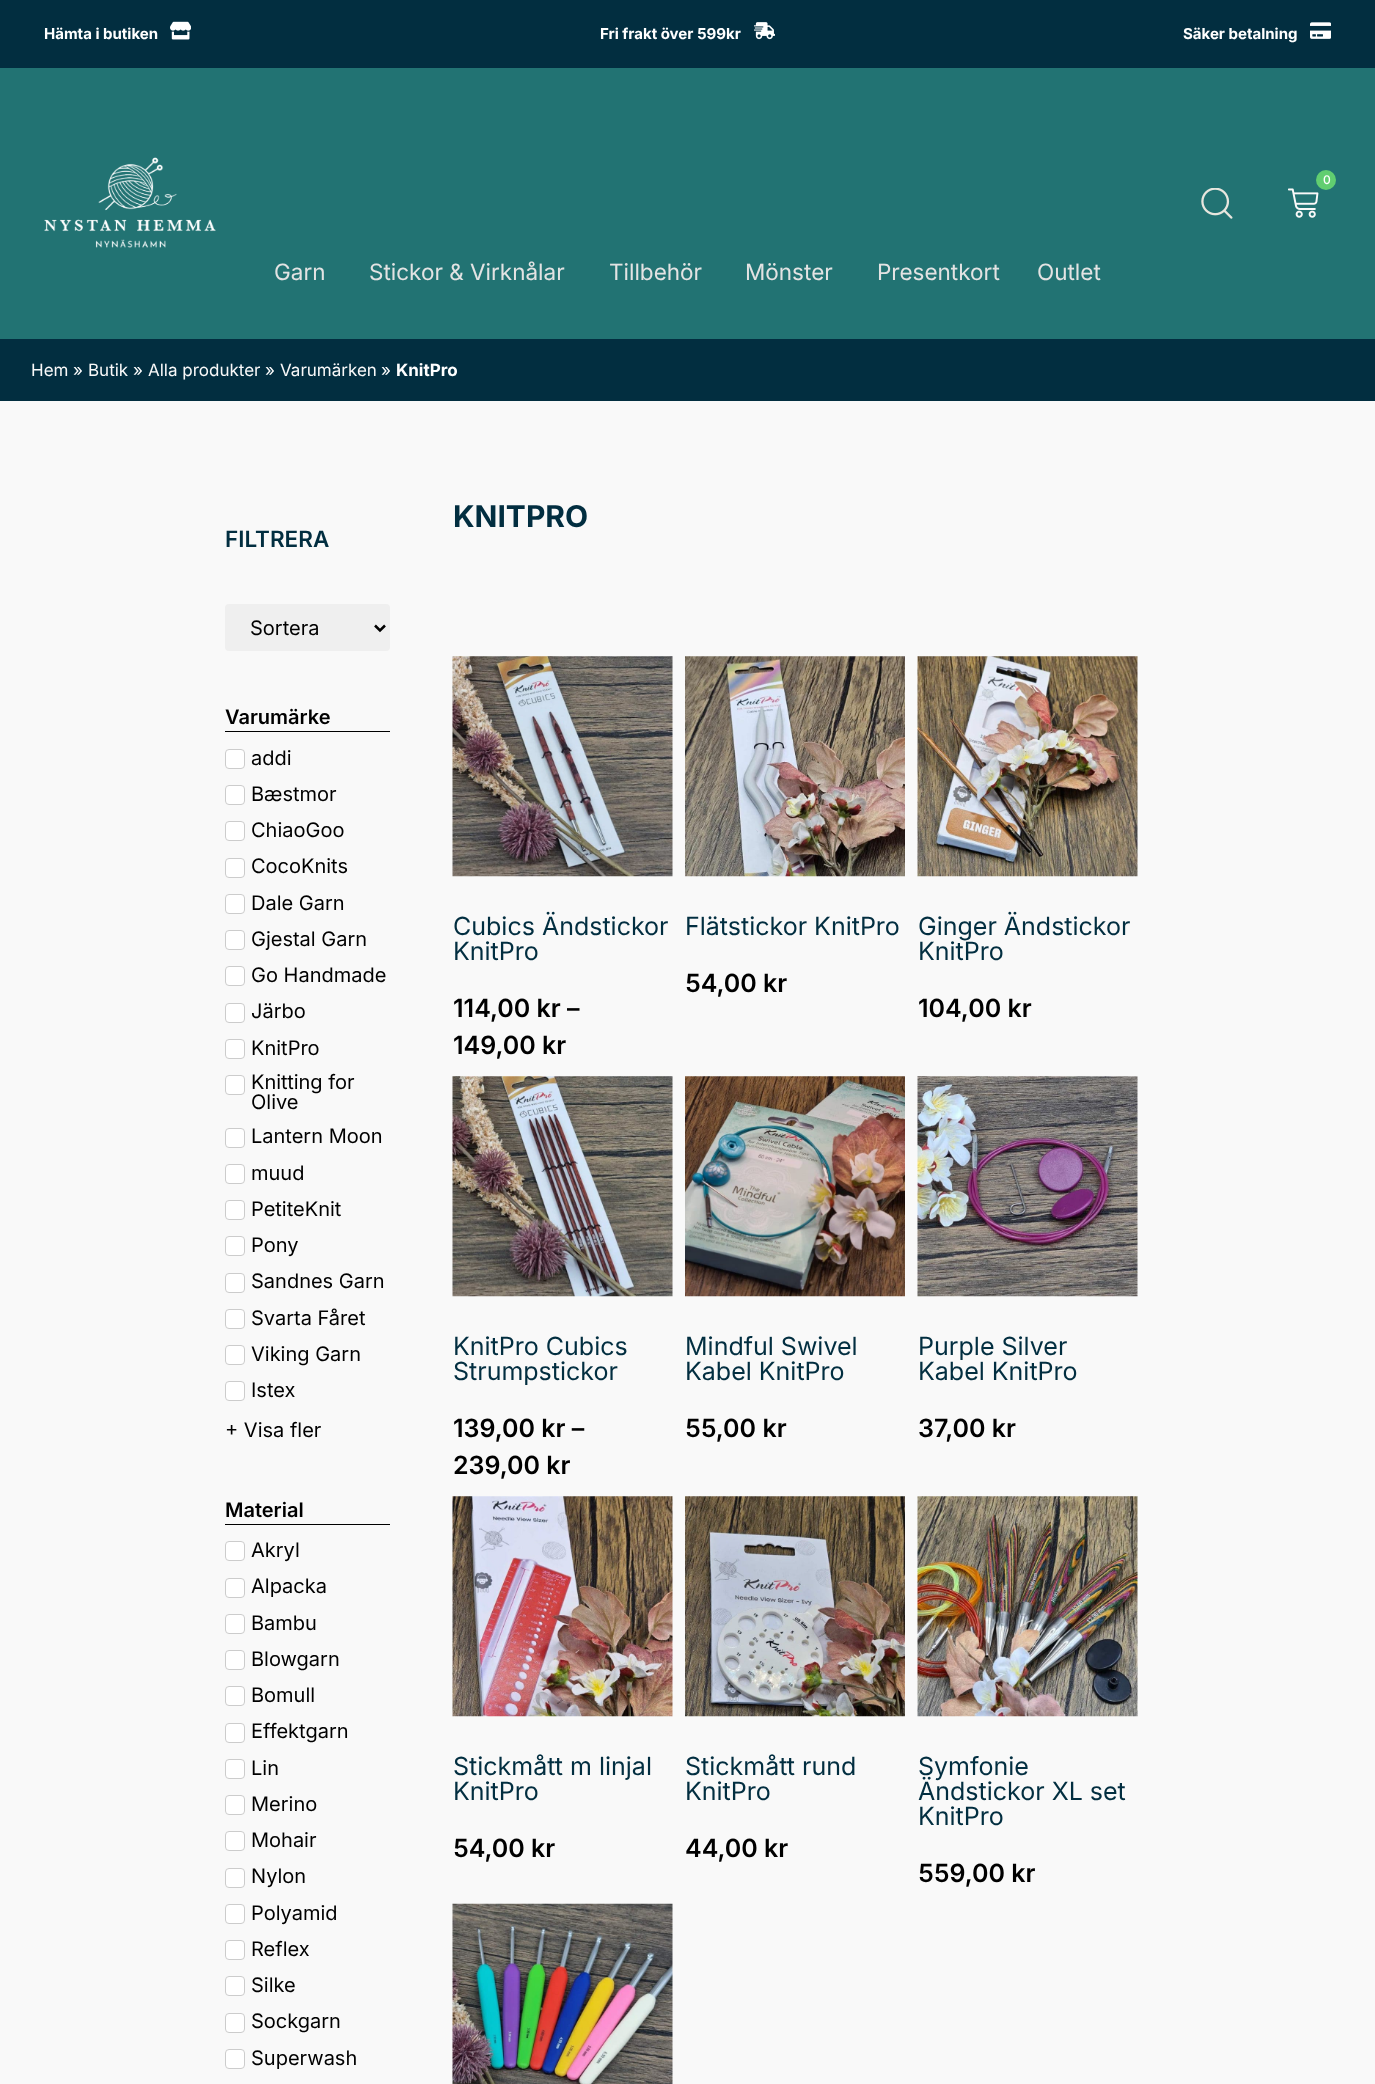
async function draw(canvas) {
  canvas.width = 1375
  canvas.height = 2084
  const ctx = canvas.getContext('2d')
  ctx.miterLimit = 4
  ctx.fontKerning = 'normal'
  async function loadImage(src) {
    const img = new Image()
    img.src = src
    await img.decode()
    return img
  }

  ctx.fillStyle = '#f9f9f9'
  ctx.fillRect(0, 0, 1375, 2084)
  ctx.fillStyle = '#022e40'
  ctx.fillRect(0, 0, 1375, 68)
  ctx.font = 'bold 15px Inter'
  ctx.fillStyle = '#fff'
  ctx.fillText('Hämta i butiken', 44, 39)
  ctx.drawImage(await loadImage('image0.png'), 170, 21, 21, 19)
  ctx.fillText('Fri frakt över 599kr', 600, 39)
  ctx.drawImage(await loadImage('image1.png'), 754, 22, 21, 18)
  ctx.fillText('Säker betalning', 1183, 39)
  ctx.drawImage(await loadImage('image2.png'), 1310, 22, 21, 17)
  ctx.fillStyle = '#227373'
  ctx.fillRect(0, 68, 1375, 271)
  ctx.drawImage(await loadImage('image3.png'), 44, 157, 172, 91)
  ctx.drawImage(await loadImage('image4.png'), 1288, 188, 31, 30)
  ctx.fillStyle = '#61ce70'
  ctx.beginPath()
  ctx.arc(1326, 180, 10, 0, 2 * Math.PI)
  ctx.fill()
  ctx.font = '500 12px Inter'
  ctx.fillStyle = '#fff'
  ctx.fillText('0', 1323, 184)
  ctx.drawImage(await loadImage('image5.png'), 1201, 188, 32, 31)
  ctx.font = '22.5px Inter'
  ctx.fillStyle = '#e3e3e3'
  ctx.fillText('Garn', 274, 280)
  ctx.fillText('Stickor & Virknålar', 369, 280)
  ctx.fillText('Tillbehör', 609, 280)
  ctx.fillText('Mönster', 745, 280)
  ctx.fillText('Presentkort', 877, 280)
  ctx.fillText('Outlet', 1037, 280)
  ctx.fillStyle = '#022e40'
  ctx.fillRect(0, 339, 1375, 62)
  ctx.font = '17px Inter'
  ctx.fillStyle = '#f9f9f9'
  ctx.fillText('Hem', 31, 376)
  ctx.fillStyle = '#fff'
  ctx.fillText('»', 73, 376)
  ctx.fillStyle = '#f9f9f9'
  ctx.fillText('Butik', 88, 376)
  ctx.fillStyle = '#fff'
  ctx.fillText('»', 133, 376)
  ctx.fillStyle = '#f9f9f9'
  ctx.fillText('Alla produkter', 148, 376)
  ctx.fillStyle = '#fff'
  ctx.fillText('»', 265, 376)
  ctx.fillStyle = '#f9f9f9'
  ctx.fillText('Varumärken', 280, 376)
  ctx.fillStyle = '#fff'
  ctx.fillText('»', 381, 376)
  ctx.font = 'bold 17px Inter'
  ctx.fillText('KnitPro', 396, 376)
  ctx.font = '600 22.5px Inter'
  ctx.fillStyle = '#022e40'
  ctx.fillText('FILTRERA', 225, 547)
  ctx.fillStyle = '#efefef'
  ctx.beginPath()
  ctx.roundRect(225, 604, 165, 47, 4)
  ctx.fill()
  ctx.beginPath()
  ctx.moveTo(375, 625.5)
  ctx.lineTo(380, 630.5)
  ctx.lineTo(385, 625.5)
  ctx.strokeStyle = '#000'
  ctx.lineWidth = 2.5
  ctx.stroke()
  ctx.font = '20px Inter'
  ctx.fillStyle = '#000'
  ctx.fillText('Sortera', 250, 635)
  ctx.fillRect(225, 731, 165, 1)
  ctx.font = '600 20px Inter'
  ctx.fillText('Varumärke', 225, 724)
  ctx.fillStyle = '#fff'
  ctx.beginPath()
  ctx.roundRect(225.5, 749.5, 19, 19, 3.5)
  ctx.fill()
  ctx.strokeStyle = '#ccc'
  ctx.lineWidth = 1
  ctx.stroke()
  ctx.font = '20px Inter'
  ctx.fillStyle = '#000'
  ctx.fillText('addi', 251, 765)
  ctx.fillStyle = '#fff'
  ctx.beginPath()
  ctx.roundRect(225.5, 785.5, 19, 19, 3.5)
  ctx.fill()
  ctx.stroke()
  ctx.fillStyle = '#000'
  ctx.fillText('Bæstmor', 251, 801)
  ctx.fillStyle = '#fff'
  ctx.beginPath()
  ctx.roundRect(225.5, 821.5, 19, 19, 3.5)
  ctx.fill()
  ctx.stroke()
  ctx.fillStyle = '#000'
  ctx.fillText('ChiaoGoo', 251, 837)
  ctx.fillStyle = '#fff'
  ctx.beginPath()
  ctx.roundRect(225.5, 858.5, 19, 19, 3.5)
  ctx.fill()
  ctx.stroke()
  ctx.fillStyle = '#000'
  ctx.fillText('CocoKnits', 251, 873)
  ctx.fillStyle = '#fff'
  ctx.beginPath()
  ctx.roundRect(225.5, 894.5, 19, 19, 3.5)
  ctx.fill()
  ctx.stroke()
  ctx.fillStyle = '#000'
  ctx.fillText('Dale Garn', 251, 910)
  ctx.fillStyle = '#fff'
  ctx.beginPath()
  ctx.roundRect(225.5, 930.5, 19, 19, 3.5)
  ctx.fill()
  ctx.stroke()
  ctx.fillStyle = '#000'
  ctx.fillText('Gjestal Garn', 251, 946)
  ctx.fillStyle = '#fff'
  ctx.beginPath()
  ctx.roundRect(225.5, 966.5, 19, 19, 3.5)
  ctx.fill()
  ctx.stroke()
  ctx.fillStyle = '#000'
  ctx.fillText('Go Handmade', 251, 982)
  ctx.fillStyle = '#fff'
  ctx.beginPath()
  ctx.roundRect(225.5, 1003.5, 19, 19, 3.5)
  ctx.fill()
  ctx.stroke()
  ctx.fillStyle = '#000'
  ctx.fillText('Järbo', 251, 1018)
  ctx.fillStyle = '#fff'
  ctx.beginPath()
  ctx.roundRect(225.5, 1039.5, 19, 19, 3.5)
  ctx.fill()
  ctx.stroke()
  ctx.fillStyle = '#000'
  ctx.fillText('KnitPro', 251, 1055)
  ctx.fillStyle = '#fff'
  ctx.beginPath()
  ctx.roundRect(225.5, 1075.5, 19, 19, 3.5)
  ctx.fill()
  ctx.stroke()
  ctx.fillStyle = '#000'
  ctx.fillText('Knitting for', 251, 1089)
  ctx.fillText('Olive', 251, 1109)
  ctx.fillStyle = '#fff'
  ctx.beginPath()
  ctx.roundRect(225.5, 1128.5, 19, 19, 3.5)
  ctx.fill()
  ctx.stroke()
  ctx.fillStyle = '#000'
  ctx.fillText('Lantern Moon', 251, 1143)
  ctx.fillStyle = '#fff'
  ctx.beginPath()
  ctx.roundRect(225.5, 1164.5, 19, 19, 3.5)
  ctx.fill()
  ctx.stroke()
  ctx.fillStyle = '#000'
  ctx.fillText('muud', 251, 1180)
  ctx.fillStyle = '#fff'
  ctx.beginPath()
  ctx.roundRect(225.5, 1200.5, 19, 19, 3.5)
  ctx.fill()
  ctx.stroke()
  ctx.fillStyle = '#000'
  ctx.fillText('PetiteKnit', 251, 1216)
  ctx.fillStyle = '#fff'
  ctx.beginPath()
  ctx.roundRect(225.5, 1236.5, 19, 19, 3.5)
  ctx.fill()
  ctx.stroke()
  ctx.fillStyle = '#000'
  ctx.fillText('Pony', 251, 1252)
  ctx.fillStyle = '#fff'
  ctx.beginPath()
  ctx.roundRect(225.5, 1273.5, 19, 19, 3.5)
  ctx.fill()
  ctx.stroke()
  ctx.fillStyle = '#000'
  ctx.fillText('Sandnes Garn', 251, 1288)
  ctx.fillStyle = '#fff'
  ctx.beginPath()
  ctx.roundRect(225.5, 1309.5, 19, 19, 3.5)
  ctx.fill()
  ctx.stroke()
  ctx.fillStyle = '#000'
  ctx.fillText('Svarta Fåret', 251, 1325)
  ctx.fillStyle = '#fff'
  ctx.beginPath()
  ctx.roundRect(225.5, 1345.5, 19, 19, 3.5)
  ctx.fill()
  ctx.stroke()
  ctx.fillStyle = '#000'
  ctx.fillText('Viking Garn', 251, 1361)
  ctx.fillStyle = '#fff'
  ctx.beginPath()
  ctx.roundRect(225.5, 1381.5, 19, 19, 3.5)
  ctx.fill()
  ctx.stroke()
  ctx.fillStyle = '#000'
  ctx.fillText('Istex', 251, 1397)
  ctx.fillText('+ Visa fler', 225, 1437)
  ctx.fillRect(225, 1524, 165, 1)
  ctx.font = '600 20px Inter'
  ctx.fillText('Material', 225, 1517)
  ctx.fillStyle = '#fff'
  ctx.beginPath()
  ctx.roundRect(225.5, 1541.5, 19, 19, 3.5)
  ctx.fill()
  ctx.stroke()
  ctx.font = '20px Inter'
  ctx.fillStyle = '#000'
  ctx.fillText('Akryl', 251, 1557)
  ctx.fillStyle = '#fff'
  ctx.beginPath()
  ctx.roundRect(225.5, 1578.5, 19, 19, 3.5)
  ctx.fill()
  ctx.stroke()
  ctx.fillStyle = '#000'
  ctx.fillText('Alpacka', 251, 1593)
  ctx.fillStyle = '#fff'
  ctx.beginPath()
  ctx.roundRect(225.5, 1614.5, 19, 19, 3.5)
  ctx.fill()
  ctx.stroke()
  ctx.fillStyle = '#000'
  ctx.fillText('Bambu', 251, 1630)
  ctx.fillStyle = '#fff'
  ctx.beginPath()
  ctx.roundRect(225.5, 1650.5, 19, 19, 3.5)
  ctx.fill()
  ctx.stroke()
  ctx.fillStyle = '#000'
  ctx.fillText('Blowgarn', 251, 1666)
  ctx.fillStyle = '#fff'
  ctx.beginPath()
  ctx.roundRect(225.5, 1686.5, 19, 19, 3.5)
  ctx.fill()
  ctx.stroke()
  ctx.fillStyle = '#000'
  ctx.fillText('Bomull', 251, 1702)
  ctx.fillStyle = '#fff'
  ctx.beginPath()
  ctx.roundRect(225.5, 1723.5, 19, 19, 3.5)
  ctx.fill()
  ctx.stroke()
  ctx.fillStyle = '#000'
  ctx.fillText('Effektgarn', 251, 1738)
  ctx.fillStyle = '#fff'
  ctx.beginPath()
  ctx.roundRect(225.5, 1759.5, 19, 19, 3.5)
  ctx.fill()
  ctx.stroke()
  ctx.fillStyle = '#000'
  ctx.fillText('Lin', 251, 1775)
  ctx.fillStyle = '#fff'
  ctx.beginPath()
  ctx.roundRect(225.5, 1795.5, 19, 19, 3.5)
  ctx.fill()
  ctx.stroke()
  ctx.fillStyle = '#000'
  ctx.fillText('Merino', 251, 1811)
  ctx.fillStyle = '#fff'
  ctx.beginPath()
  ctx.roundRect(225.5, 1831.5, 19, 19, 3.5)
  ctx.fill()
  ctx.stroke()
  ctx.fillStyle = '#000'
  ctx.fillText('Mohair', 251, 1847)
  ctx.fillStyle = '#fff'
  ctx.beginPath()
  ctx.roundRect(225.5, 1868.5, 19, 19, 3.5)
  ctx.fill()
  ctx.stroke()
  ctx.fillStyle = '#000'
  ctx.fillText('Nylon', 251, 1883)
  ctx.fillStyle = '#fff'
  ctx.beginPath()
  ctx.roundRect(225.5, 1904.5, 19, 19, 3.5)
  ctx.fill()
  ctx.stroke()
  ctx.fillStyle = '#000'
  ctx.fillText('Polyamid', 251, 1920)
  ctx.fillStyle = '#fff'
  ctx.beginPath()
  ctx.roundRect(225.5, 1940.5, 19, 19, 3.5)
  ctx.fill()
  ctx.stroke()
  ctx.fillStyle = '#000'
  ctx.fillText('Reflex', 251, 1956)
  ctx.fillStyle = '#fff'
  ctx.beginPath()
  ctx.roundRect(225.5, 1976.5, 19, 19, 3.5)
  ctx.fill()
  ctx.stroke()
  ctx.fillStyle = '#000'
  ctx.fillText('Silke', 251, 1992)
  ctx.fillStyle = '#fff'
  ctx.beginPath()
  ctx.roundRect(225.5, 2013.5, 19, 19, 3.5)
  ctx.fill()
  ctx.stroke()
  ctx.fillStyle = '#000'
  ctx.fillText('Sockgarn', 251, 2028)
  ctx.fillStyle = '#fff'
  ctx.beginPath()
  ctx.roundRect(225.5, 2049.5, 19, 19, 3.5)
  ctx.fill()
  ctx.stroke()
  ctx.fillStyle = '#000'
  ctx.fillText('Superwash', 251, 2065)
  ctx.font = 'bold 30px Inter'
  ctx.fillStyle = '#022e40'
  ctx.fillText('KNITPRO', 453, 527)
  ctx.drawImage(await loadImage('image6.png'), 452, 656, 221, 221)
  ctx.font = '25px Inter'
  ctx.fillText('Cubics Ändstickor', 453, 935)
  ctx.fillText('KnitPro', 453, 960)
  ctx.font = '600 25px Inter'
  ctx.fillStyle = '#000'
  ctx.fillText('114,00 kr –', 453, 1017)
  ctx.fillText('149,00 kr', 453, 1054)
  ctx.drawImage(await loadImage('image7.png'), 685, 656, 220, 221)
  ctx.font = '25px Inter'
  ctx.fillStyle = '#022e40'
  ctx.fillText('Flätstickor KnitPro', 685, 935)
  ctx.font = '600 25px Inter'
  ctx.fillStyle = '#000'
  ctx.fillText('54,00 kr', 685, 992)
  ctx.drawImage(await loadImage('image8.png'), 917, 656, 221, 221)
  ctx.font = '25px Inter'
  ctx.fillStyle = '#022e40'
  ctx.fillText('Ginger Ändstickor', 918, 935)
  ctx.fillText('KnitPro', 918, 960)
  ctx.font = '600 25px Inter'
  ctx.fillStyle = '#000'
  ctx.fillText('104,00 kr', 918, 1017)
  ctx.drawImage(await loadImage('image9.png'), 452, 1076, 221, 221)
  ctx.font = '25px Inter'
  ctx.fillStyle = '#022e40'
  ctx.fillText('KnitPro Cubics', 453, 1355)
  ctx.fillText('Strumpstickor', 453, 1380)
  ctx.font = '600 25px Inter'
  ctx.fillStyle = '#000'
  ctx.fillText('139,00 kr –', 453, 1437)
  ctx.fillText('239,00 kr', 453, 1474)
  ctx.drawImage(await loadImage('image10.png'), 685, 1076, 220, 221)
  ctx.font = '25px Inter'
  ctx.fillStyle = '#022e40'
  ctx.fillText('Mindful Swivel', 685, 1355)
  ctx.fillText('Kabel KnitPro', 685, 1380)
  ctx.font = '600 25px Inter'
  ctx.fillStyle = '#000'
  ctx.fillText('55,00 kr', 685, 1437)
  ctx.drawImage(await loadImage('image11.png'), 917, 1076, 221, 221)
  ctx.font = '25px Inter'
  ctx.fillStyle = '#022e40'
  ctx.fillText('Purple Silver', 918, 1355)
  ctx.fillText('Kabel KnitPro', 918, 1380)
  ctx.font = '600 25px Inter'
  ctx.fillStyle = '#000'
  ctx.fillText('37,00 kr', 918, 1437)
  ctx.drawImage(await loadImage('image12.png'), 452, 1496, 221, 221)
  ctx.font = '25px Inter'
  ctx.fillStyle = '#022e40'
  ctx.fillText('Stickmått m linjal', 453, 1775)
  ctx.fillText('KnitPro', 453, 1800)
  ctx.font = '600 25px Inter'
  ctx.fillStyle = '#000'
  ctx.fillText('54,00 kr', 453, 1857)
  ctx.drawImage(await loadImage('image13.png'), 685, 1496, 220, 221)
  ctx.font = '25px Inter'
  ctx.fillStyle = '#022e40'
  ctx.fillText('Stickmått rund', 685, 1775)
  ctx.fillText('KnitPro', 685, 1800)
  ctx.font = '600 25px Inter'
  ctx.fillStyle = '#000'
  ctx.fillText('44,00 kr', 685, 1857)
  ctx.drawImage(await loadImage('image14.png'), 917, 1496, 221, 221)
  ctx.font = '25px Inter'
  ctx.fillStyle = '#022e40'
  ctx.fillText('Symfonie', 918, 1775)
  ctx.fillText('Ändstickor XL set', 918, 1800)
  ctx.fillText('KnitPro', 918, 1825)
  ctx.font = '600 25px Inter'
  ctx.fillStyle = '#000'
  ctx.fillText('559,00 kr', 918, 1882)
  ctx.drawImage(await loadImage('image15.png'), 452, 1903, 221, 181)
}

draw(document.querySelector('canvas'))
